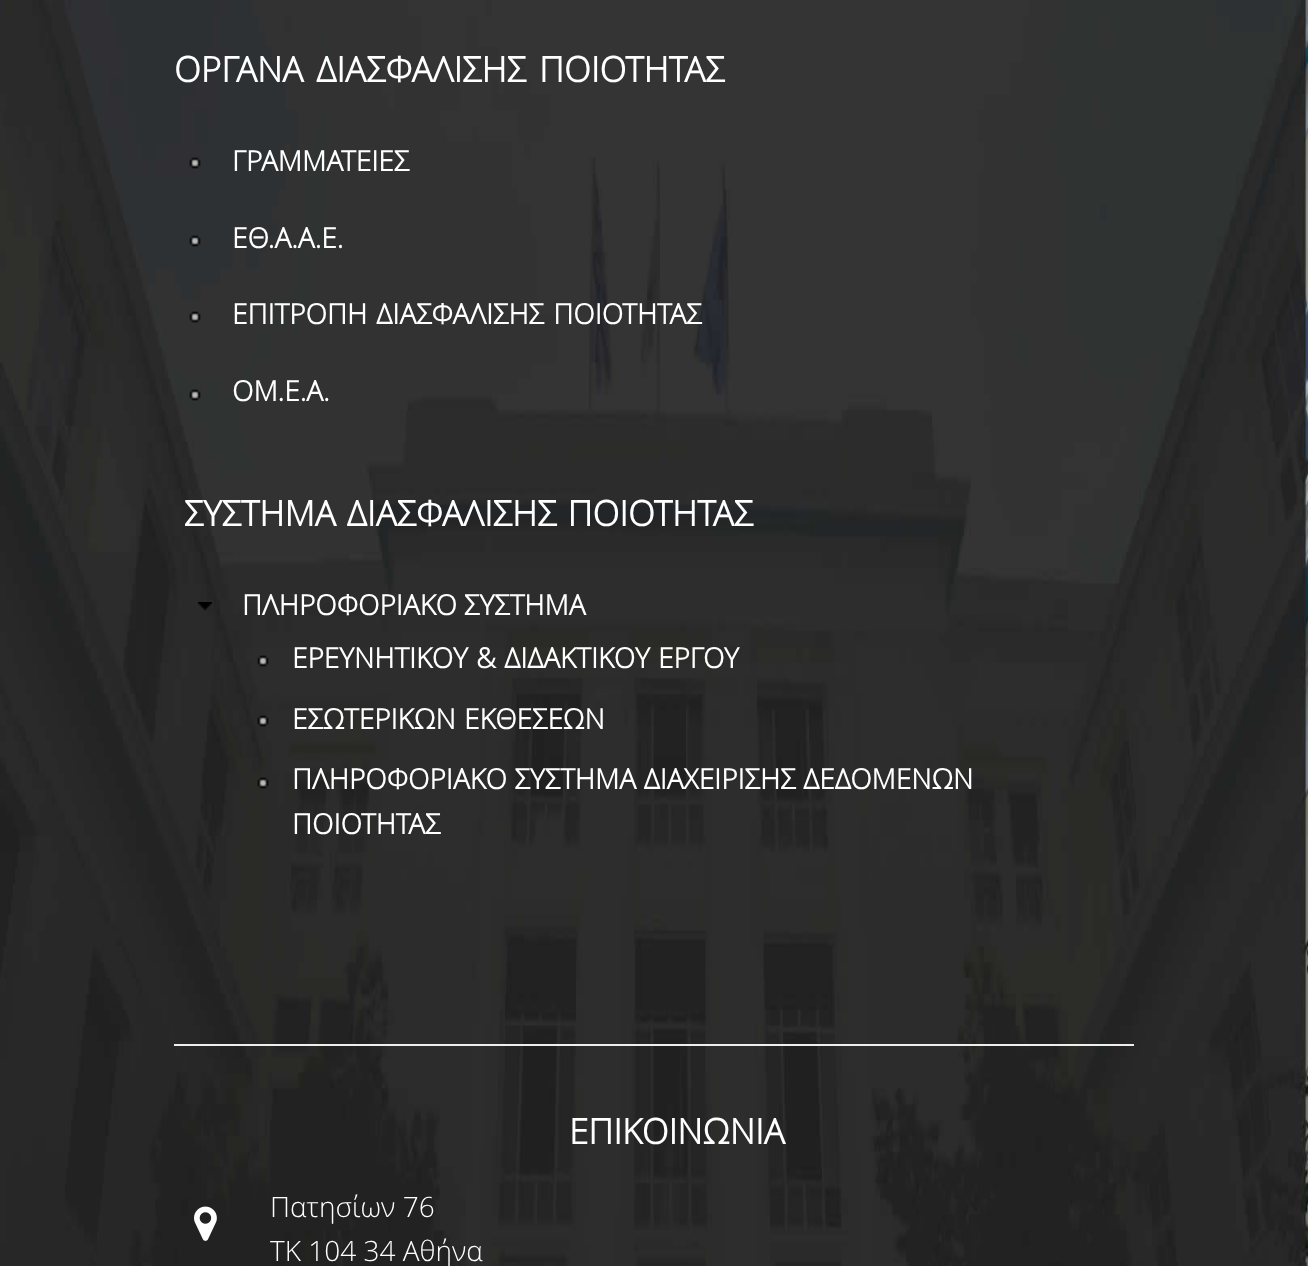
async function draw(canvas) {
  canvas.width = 1308
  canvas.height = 1266
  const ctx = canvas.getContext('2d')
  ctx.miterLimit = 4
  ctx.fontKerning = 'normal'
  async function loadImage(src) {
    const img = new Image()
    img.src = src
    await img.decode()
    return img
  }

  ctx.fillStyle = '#fff'
  ctx.fillRect(0, 0, 1308, 1266)
  ctx.drawImage(await loadImage('image0.png'), 0, 0, 1308, 1266)
  ctx.wordSpacing = '4px'
  ctx.font = 'bold 35px Open Sans'
  ctx.fillText('ΟΡΓΑΝΑ ΔΙΑΣΦΑΛΙΣΗΣ ΠΟΙΟΤΗΤΑΣ', 174, 82)
  ctx.drawImage(await loadImage('image1.png'), 189, 157, 12, 12)
  ctx.wordSpacing = '0px'
  ctx.font = 'bold 28px Open Sans'
  ctx.fillText('ΓΡΑΜΜΑΤΕΙΕΣ', 232, 171)
  ctx.drawImage(await loadImage('image2.png'), 189, 235, 12, 12)
  ctx.fillText('ΕΘ.Α.Α.Ε.', 232, 248)
  ctx.drawImage(await loadImage('image3.png'), 189, 311, 12, 12)
  ctx.wordSpacing = '2px'
  ctx.fillText('ΕΠΙΤΡΟΠΗ ΔΙΑΣΦΑΛΙΣΗΣ ΠΟΙΟΤΗΤΑΣ', 232, 324)
  ctx.drawImage(await loadImage('image4.png'), 189, 389, 12, 12)
  ctx.wordSpacing = '0px'
  ctx.fillText('ΟΜ.Ε.Α.', 232, 401)
  ctx.wordSpacing = '2px'
  ctx.font = 'bold 35px Open Sans'
  ctx.fillText('ΣΥΣΤΗΜΑ ΔΙΑΣΦΑΛΙΣΗΣ ΠΟΙΟΤΗΤΑΣ', 184, 526)
  ctx.drawImage(await loadImage('image5.png'), 198, 602, 14, 9)
  ctx.wordSpacing = '0px'
  ctx.font = 'bold 28px Open Sans'
  ctx.fillText('ΠΛΗΡΟΦΟΡΙΑΚΟ ΣΥΣΤΗΜΑ', 242, 615)
  ctx.drawImage(await loadImage('image6.png'), 257, 655, 12, 12)
  ctx.wordSpacing = '1px'
  ctx.fillText('ΕΡΕΥΝΗΤΙΚΟΥ & ΔΙΔΑΚΤΙΚΟΥ ΕΡΓΟΥ', 292, 668)
  ctx.drawImage(await loadImage('image7.png'), 257, 715, 12, 12)
  ctx.fillText('ΕΣΩΤΕΡΙΚΩΝ ΕΚΘΕΣΕΩΝ', 292, 729)
  ctx.drawImage(await loadImage('image8.png'), 257, 777, 12, 12)
  ctx.wordSpacing = '0.5px'
  ctx.fillText('ΠΛΗΡΟΦΟΡΙΑΚΟ ΣΥΣΤΗΜΑ ΔΙΑΧΕΙΡΙΣΗΣ ΔΕΔΟΜΕΝΩΝ', 292, 789)
  ctx.wordSpacing = '0px'
  ctx.fillText('ΠΟΙΟΤΗΤΑΣ', 292, 834)
  ctx.fillStyle = '#eee'
  ctx.fillRect(174, 1044, 960, 2)
  ctx.font = 'bold 35px Open Sans'
  ctx.fillStyle = '#fff'
  ctx.fillText('ΕΠΙΚΟΙΝΩΝΙΑ', 569, 1144)
  ctx.drawImage(await loadImage('image9.png'), 194, 1206, 23, 35)
  ctx.font = '300 28px Open Sans'
  ctx.fillText('Πατησίων 76', 270, 1217)
  ctx.fillText('ΤΚ 104 34 Αθήνα', 270, 1261)
}

draw(document.querySelector('canvas'))
